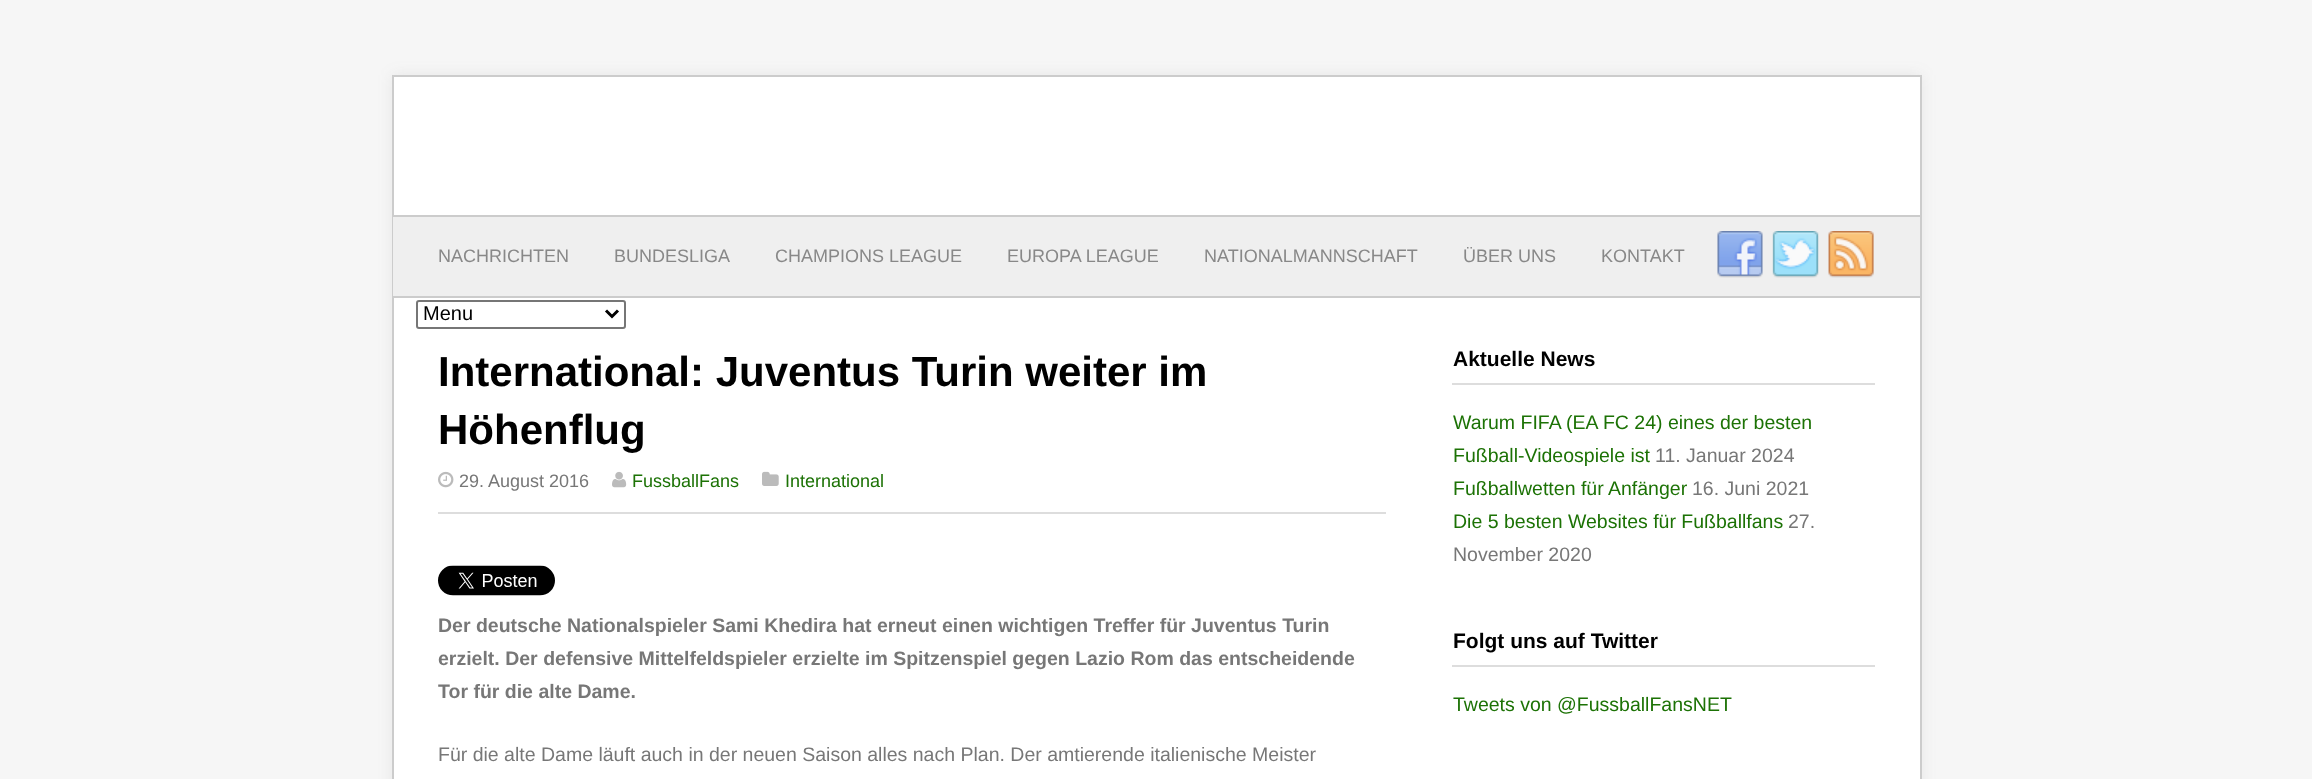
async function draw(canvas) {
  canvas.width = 2312
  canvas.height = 779
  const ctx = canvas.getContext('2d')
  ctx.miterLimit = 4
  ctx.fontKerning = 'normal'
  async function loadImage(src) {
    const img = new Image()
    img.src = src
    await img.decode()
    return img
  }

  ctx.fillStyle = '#f6f6f6'
  ctx.fillRect(0, 0, 2312, 779)
  ctx.fillStyle = '#6666661a'
  ctx.filter = 'blur(7.5px)'
  ctx.beginPath()
  ctx.rect(392, 75, 1530, 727)
  ctx.fill()
  ctx.filter = 'none'
  ctx.fillStyle = '#fff'
  ctx.beginPath()
  ctx.rect(393, 76, 1528, 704)
  ctx.fill()
  ctx.strokeStyle = '#ccc'
  ctx.lineWidth = 2
  ctx.stroke()
  ctx.fillStyle = '#efefef'
  ctx.fillRect(393, 217, 1527, 79)
  ctx.fillStyle = '#ccc'
  ctx.fillRect(393, 215, 1527, 2)
  ctx.fillRect(393, 296, 1527, 2)
  ctx.font = '18px Liberation Sans'
  ctx.fillStyle = '#888'
  ctx.fillText('NACHRICHTEN', 438, 262)
  ctx.fillText('BUNDESLIGA', 614, 262)
  ctx.fillText('CHAMPIONS LEAGUE', 775, 262)
  ctx.fillText('EUROPA LEAGUE', 1007, 262)
  ctx.fillText('NATIONALMANNSCHAFT', 1204, 262)
  ctx.fillText('ÜBER UNS', 1463, 262)
  ctx.fillText('KONTAKT', 1601, 262)
  ctx.drawImage(await loadImage('image0.png'), 1717, 231, 46, 47)
  ctx.drawImage(await loadImage('image1.png'), 1772, 231, 47, 47)
  ctx.drawImage(await loadImage('image2.png'), 1828, 231, 46, 47)
  ctx.beginPath()
  ctx.roundRect(417, 301, 208, 27, 2)
  ctx.strokeStyle = '#767676'
  ctx.stroke()
  ctx.beginPath()
  ctx.moveTo(606, 310.5)
  ctx.lineTo(612, 316.5)
  ctx.lineTo(618, 310.5)
  ctx.strokeStyle = '#000'
  ctx.lineWidth = 3
  ctx.stroke()
  ctx.font = '20px Liberation Sans'
  ctx.fillStyle = '#000'
  ctx.fillText('Menu', 423, 320)
  ctx.font = 'bold 42px Liberation Sans'
  ctx.fillText('International: Juventus Turin weiter im', 438, 386)
  ctx.fillText('Höhenflug', 438, 444)
  ctx.fillStyle = '#ddd'
  ctx.fillRect(438, 512, 948, 2)
  ctx.drawImage(await loadImage('image3.png'), 438, 471, 16, 17)
  ctx.font = '18px Liberation Sans'
  ctx.fillStyle = '#777'
  ctx.fillText('29. August 2016', 459, 487)
  ctx.drawImage(await loadImage('image4.png'), 612, 471, 15, 17)
  ctx.fillStyle = '#1c7205'
  ctx.fillText('FussballFans', 632, 487)
  ctx.drawImage(await loadImage('image5.png'), 762, 471, 17, 15)
  ctx.fillText('International', 785, 487)
  ctx.drawImage(await loadImage('image6.png'), 438, 565, 117, 31)
  ctx.font = 'bold 19.5px Liberation Sans'
  ctx.fillStyle = '#777'
  ctx.fillText('Der deutsche Nationalspieler Sami Khedira hat erneut einen wichtigen Treffer für Juventus Turin', 438, 632)
  ctx.fillText('erzielt. Der defensive Mittelfeldspieler erzielte im Spitzenspiel gegen Lazio Rom das entscheidende', 438, 665)
  ctx.fillText('Tor für die alte Dame.', 438, 698)
  ctx.font = '19.5px Liberation Sans'
  ctx.fillText('Für die alte Dame läuft auch in der neuen Saison alles nach Plan. Der amtierende italienische Meister', 438, 761)
  ctx.fillStyle = '#ddd'
  ctx.fillRect(1452, 383, 423, 2)
  ctx.font = 'bold 21px Liberation Sans'
  ctx.fillStyle = '#000'
  ctx.fillText('Aktuelle News', 1453, 366)
  ctx.font = '19.5px Liberation Sans'
  ctx.fillStyle = '#1c7205'
  ctx.fillText('Warum FIFA (EA FC 24) eines der besten', 1453, 429)
  ctx.fillText('Fußball-Videospiele ist', 1453, 462)
  ctx.fillStyle = '#777'
  ctx.fillText('11. Januar 2024', 1655, 462)
  ctx.fillStyle = '#1c7205'
  ctx.fillText('Fußballwetten für Anfänger', 1453, 495)
  ctx.fillStyle = '#777'
  ctx.fillText('16. Juni 2021', 1692, 495)
  ctx.fillStyle = '#1c7205'
  ctx.fillText('Die 5 besten Websites für Fußballfans', 1453, 528)
  ctx.fillStyle = '#777'
  ctx.fillText('27.', 1788, 528)
  ctx.fillText('November 2020', 1453, 561)
  ctx.fillStyle = '#ddd'
  ctx.fillRect(1452, 665, 423, 2)
  ctx.font = 'bold 21px Liberation Sans'
  ctx.fillStyle = '#000'
  ctx.fillText('Folgt uns auf Twitter', 1453, 648)
  ctx.font = '19.5px Liberation Sans'
  ctx.fillStyle = '#1c7205'
  ctx.fillText('Tweets von @FussballFansNET', 1453, 711)
}

draw(document.querySelector('canvas'))
